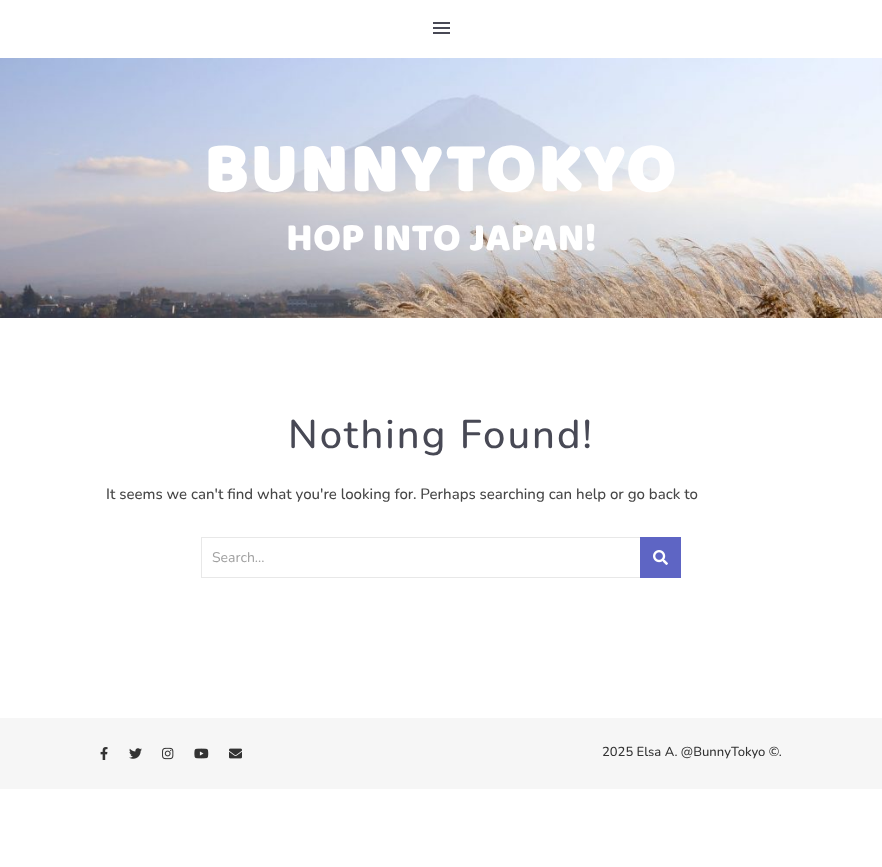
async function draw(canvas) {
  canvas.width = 882
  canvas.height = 867
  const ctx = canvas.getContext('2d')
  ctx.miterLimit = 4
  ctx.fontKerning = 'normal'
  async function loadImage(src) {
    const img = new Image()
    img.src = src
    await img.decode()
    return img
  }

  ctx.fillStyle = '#fff'
  ctx.fillRect(0, 0, 882, 867)
  ctx.fillStyle = '#484955'
  ctx.fillRect(433, 22, 17, 2)
  ctx.fillRect(433, 27, 17, 2)
  ctx.fillRect(433, 32, 17, 2)
  ctx.drawImage(await loadImage('image0.png'), 0, 58, 882, 260)
  ctx.letterSpacing = '3px'
  ctx.font = 'bold 70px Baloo'
  ctx.fillStyle = '#fff'
  ctx.fillText('BUNNYTOKYO', 204, 191)
  ctx.letterSpacing = '0px'
  ctx.font = '40px Baloo'
  ctx.fillText('HOP INTO JAPAN!', 286, 250)
  ctx.letterSpacing = '2px'
  ctx.font = '500 40px Nunito'
  ctx.fillStyle = '#484955'
  ctx.fillText('Nothing Found!', 288, 448)
  ctx.letterSpacing = '0px'
  ctx.font = '500 15px Nunito'
  ctx.fillStyle = '#464646'
  ctx.fillText('It seems we can\'t find what you\'re looking for. Perhaps searching can help or go back to', 106, 499)
  ctx.strokeStyle = '#e8e8e8'
  ctx.strokeRect(201.5, 537.5, 479, 40)
  ctx.font = '14px Nunito'
  ctx.fillStyle = '#a1a1a1'
  ctx.fillText('Search...', 212, 562)
  ctx.fillStyle = '#5e65c4'
  ctx.fillRect(640, 537, 41, 41)
  ctx.drawImage(await loadImage('image1.png'), 653, 550, 15, 15)
  ctx.fillStyle = '#f6f6f6'
  ctx.fillRect(0, 718, 882, 71)
  ctx.drawImage(await loadImage('image2.png'), 100, 747, 8, 13)
  ctx.drawImage(await loadImage('image3.png'), 129, 748, 13, 11)
  ctx.drawImage(await loadImage('image4.png'), 162, 747, 12, 13)
  ctx.drawImage(await loadImage('image5.png'), 194, 748, 15, 11)
  ctx.drawImage(await loadImage('image6.png'), 229, 748, 13, 11)
  ctx.font = '500 13px Nunito'
  ctx.fillStyle = '#333'
  ctx.fillText('2025 Elsa A. @BunnyTokyo ©.', 602, 756)
}

draw(document.querySelector('canvas'))
